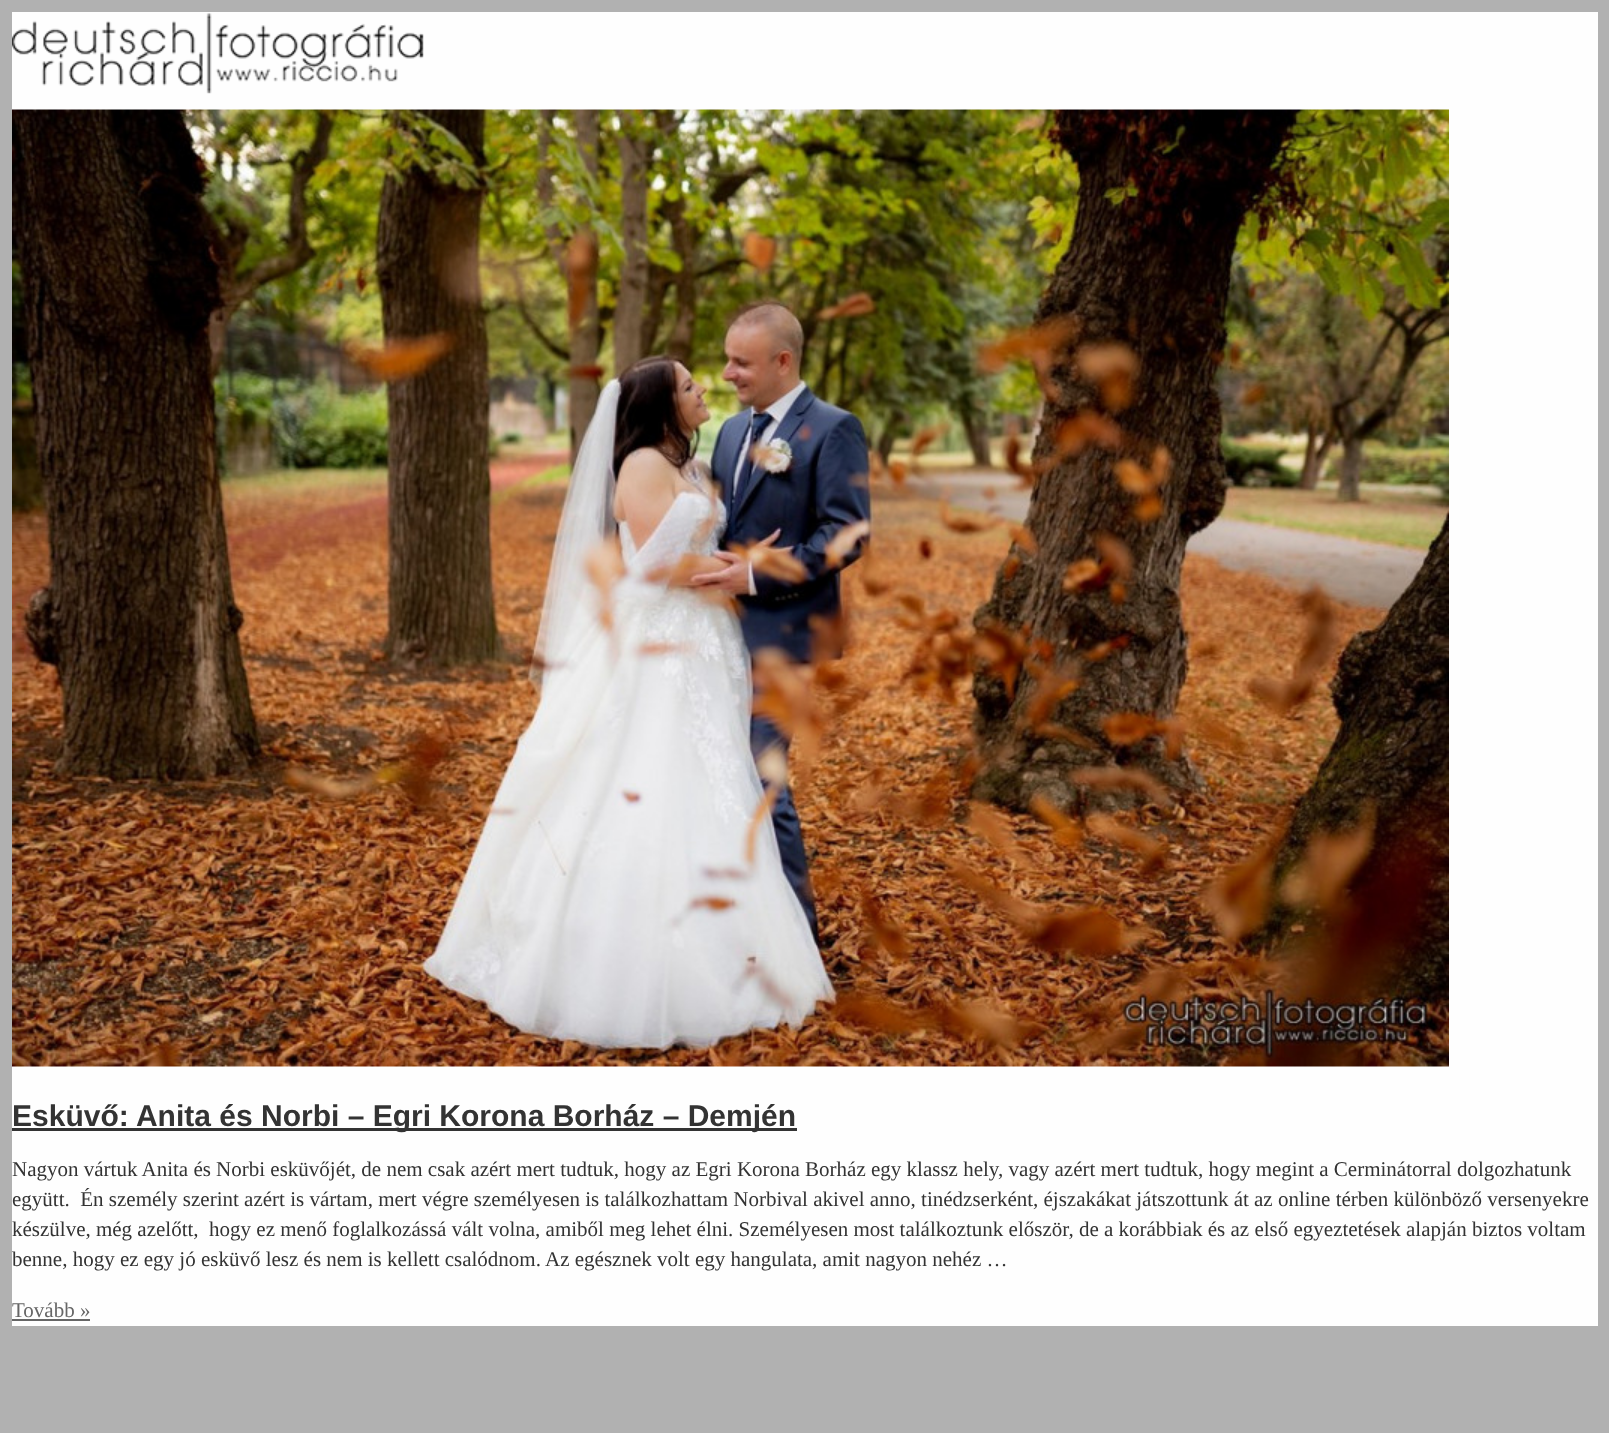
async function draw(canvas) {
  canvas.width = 1609
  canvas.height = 1433
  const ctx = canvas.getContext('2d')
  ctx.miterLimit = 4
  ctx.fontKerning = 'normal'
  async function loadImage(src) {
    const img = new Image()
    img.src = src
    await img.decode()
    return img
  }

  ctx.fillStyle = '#b1b1b1'
  ctx.fillRect(0, 0, 1609, 1433)
  ctx.fillStyle = '#fefefe'
  ctx.fillRect(12, 12, 1586, 1314)
  ctx.drawImage(await loadImage('image0.png'), 12, 13, 412, 81)
  ctx.drawImage(await loadImage('image1.png'), 12, 109, 1437, 958)
  ctx.fillStyle = '#333'
  ctx.fillRect(12, 1128, 785, 3)
  ctx.font = 'bold 30px Liberation Sans'
  ctx.fillText('Esküvő: Anita és Norbi – Egri Korona Borház – Demjén', 12, 1126)
  ctx.font = '21px Liberation Serif'
  ctx.fillText('Nagyon vártuk Anita és Norbi esküvőjét, de nem csak azért mert tudtuk, hogy az Egri Korona Borház egy klassz hely, vagy azért mert tudtuk, hogy megint a Cerminátorral dolgozhatunk', 12, 1176)
  ctx.fillText('együtt.  Én személy szerint azért is vártam, mert végre személyesen is találkozhattam Norbival akivel anno, tinédzserként, éjszakákat játszottunk át az online térben különböző versenyekre', 12, 1206)
  ctx.fillText('készülve, még azelőtt,  hogy ez menő foglalkozássá vált volna, amiből meg lehet élni. Személyesen most találkoztunk először, de a korábbiak és az első egyeztetések alapján biztos voltam', 12, 1236)
  ctx.fillText('benne, hogy ez egy jó esküvő lesz és nem is kellett csalódnom. Az egésznek volt egy hangulata, amit nagyon nehéz …', 12, 1266)
  ctx.fillStyle = '#666'
  ctx.fillText('Tovább »', 12, 1317)
  ctx.fillRect(12, 1319, 78, 2)
}

draw(document.querySelector('canvas'))
